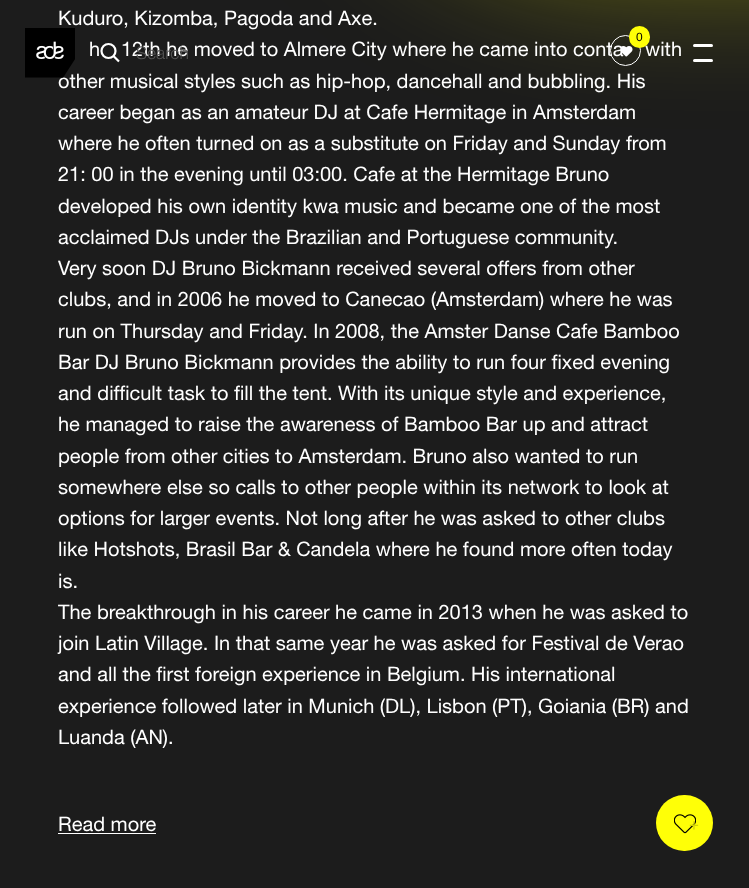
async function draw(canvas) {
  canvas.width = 749
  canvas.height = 888
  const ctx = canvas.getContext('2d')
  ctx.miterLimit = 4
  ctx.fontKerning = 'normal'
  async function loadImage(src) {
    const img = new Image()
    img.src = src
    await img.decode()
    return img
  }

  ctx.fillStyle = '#1c1c1c'
  ctx.fillRect(0, 0, 749, 888)
  ctx.fillStyle = '#ffff0399'
  ctx.filter = 'blur(82.5px)'
  ctx.beginPath()
  ctx.roundRect(350, -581, 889, 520, 333)
  ctx.fill()
  ctx.filter = 'none'
  ctx.font = '20px Helvetica Neue'
  ctx.fillStyle = '#fff'
  ctx.fillText('Kuduro, Kizomba, Pagoda and Axe.', 58, 25)
  ctx.fillText('h', 89, 56)
  ctx.fillText('12th he moved to Almere City where he came into conta', 121, 56)
  ctx.fillText('with', 645, 56)
  ctx.fillText('other musical styles such as hip-hop, dancehall and bubbling. His', 58, 88)
  ctx.fillText('career began as an amateur DJ at Cafe Hermitage in Amsterdam', 58, 119)
  ctx.fillText('where he often turned on as a substitute on Friday and Sunday from', 58, 150)
  ctx.fillText('21: 00 in the evening until 03:00. Cafe at the Hermitage Bruno', 58, 181)
  ctx.fillText('developed his own identity kwa music and became one of the most', 58, 213)
  ctx.fillText('acclaimed DJs under the Brazilian and Portuguese community.', 58, 244)
  ctx.fillText('Very soon DJ Bruno Bickmann received several offers from other', 58, 275)
  ctx.fillText('clubs, and in 2006 he moved to Canecao (Amsterdam) where he was', 58, 306)
  ctx.fillText('run on Thursday and Friday. In 2008, the Amster Danse Cafe Bamboo', 58, 338)
  ctx.fillText('Bar DJ Bruno Bickmann provides the ability to run four fixed evening', 58, 369)
  ctx.fillText('and difficult task to fill the tent. With its unique style and experience,', 58, 400)
  ctx.fillText('he managed to raise the awareness of Bamboo Bar up and attract', 58, 431)
  ctx.fillText('people from other cities to Amsterdam. Bruno also wanted to run', 58, 463)
  ctx.fillText('somewhere else so calls to other people within its network to look at', 58, 494)
  ctx.fillText('options for larger events. Not long after he was asked to other clubs', 58, 525)
  ctx.fillText('like Hotshots, Brasil Bar & Candela where he found more often today', 58, 556)
  ctx.fillText('is.', 58, 588)
  ctx.fillText('The breakthrough in his career he came in 2013 when he was asked to', 58, 619)
  ctx.fillText('join Latin Village. In that same year he was asked for Festival de Verao', 58, 650)
  ctx.fillText('and all the first foreign experience in Belgium. His international', 58, 681)
  ctx.fillText('experience followed later in Munich (DL), Lisbon (PT), Goiania (BR) and', 58, 713)
  ctx.fillText('Luanda (AN).', 58, 744)
  ctx.fillText('Read more', 58, 831)
  ctx.fillRect(58, 833, 98, 1)
  ctx.drawImage(await loadImage('image0.png'), 25, 28, 50, 50)
  ctx.beginPath()
  ctx.arc(625.5, 50.5, 15, 0, 2 * Math.PI)
  ctx.strokeStyle = '#fff'
  ctx.stroke()
  ctx.drawImage(await loadImage('image1.png'), 621, 46, 12, 11)
  ctx.fillStyle = '#ffff07'
  ctx.beginPath()
  ctx.roundRect(629, 26, 21, 22, 10.5)
  ctx.fill()
  ctx.font = '12px Liberation Sans'
  ctx.fillStyle = '#000'
  ctx.fillText('0', 636, 41)
  ctx.beginPath()
  ctx.moveTo(119, 61.5)
  ctx.lineTo(113.5, 56)
  ctx.lineWidth = 2.2
  ctx.stroke()
  ctx.beginPath()
  ctx.arc(108.5, 51, 7, 0, 2 * Math.PI)
  ctx.stroke()
  ctx.font = '300 17.5px Helvetica Neue'
  ctx.fillStyle = '#545454'
  ctx.fillText('Search', 136, 59)
  ctx.fillStyle = '#fff'
  ctx.beginPath()
  ctx.roundRect(693, 44, 20, 3, 1.5)
  ctx.fill()
  ctx.beginPath()
  ctx.roundRect(693, 59, 20, 3, 1.5)
  ctx.fill()
  ctx.fillStyle = '#ffff07'
  ctx.beginPath()
  ctx.roundRect(656, 795, 57, 56, 28)
  ctx.fill()
  ctx.drawImage(await loadImage('image2.png'), 674, 814, 22, 20)
  ctx.font = '17px Liberation Sans'
  ctx.fillStyle = '#d2d206'
  ctx.fillText('+', 689, 831)
}

draw(document.querySelector('canvas'))
